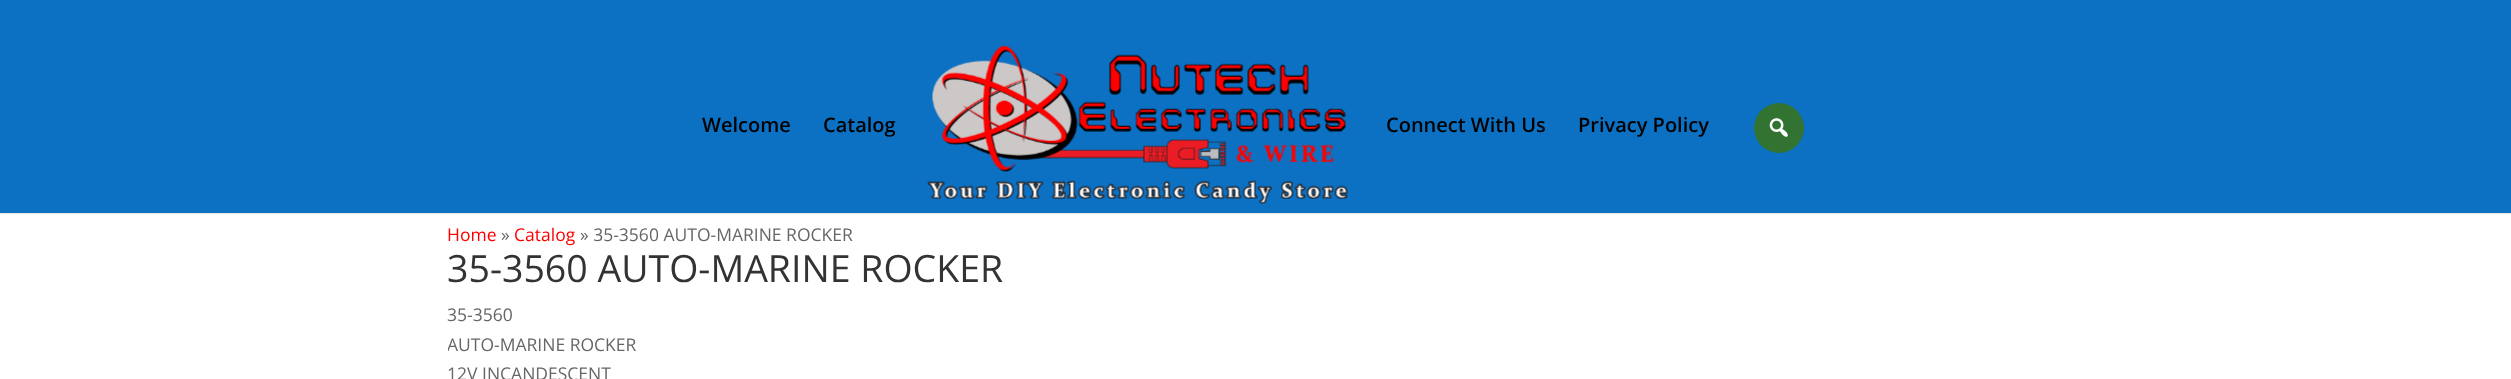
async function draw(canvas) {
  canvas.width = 2511
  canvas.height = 379
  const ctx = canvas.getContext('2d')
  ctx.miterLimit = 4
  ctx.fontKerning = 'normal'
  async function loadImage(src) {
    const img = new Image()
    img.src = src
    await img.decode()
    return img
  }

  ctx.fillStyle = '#fff'
  ctx.fillRect(0, 0, 2511, 379)
  ctx.fillStyle = '#e6e6e6'
  ctx.fillRect(0, 213, 2511, 1)
  ctx.fillStyle = '#0c71c3'
  ctx.fillRect(0, 0, 2511, 213)
  ctx.font = '600 20px Open Sans'
  ctx.fillStyle = '#000'
  ctx.fillText('Welcome', 702, 132)
  ctx.fillText('Catalog', 823, 132)
  ctx.drawImage(await loadImage('image0.png'), 927, 45, 421, 159)
  ctx.fillText('Connect With Us', 1386, 132)
  ctx.fillText('Privacy Policy', 1578, 132)
  ctx.fillStyle = '#327332'
  ctx.beginPath()
  ctx.arc(1779, 128, 25, 0, 2 * Math.PI)
  ctx.fill()
  ctx.drawImage(await loadImage('image1.png'), 1769, 118, 19, 19)
  ctx.font = '17.5px Open Sans'
  ctx.fillStyle = '#f00'
  ctx.fillText('Home', 447, 241)
  ctx.fillStyle = '#666'
  ctx.fillText('»', 501, 241)
  ctx.fillStyle = '#f00'
  ctx.fillText('Catalog', 514, 241)
  ctx.fillStyle = '#666'
  ctx.fillText('» 35-3560 AUTO-MARINE ROCKER', 580, 241)
  ctx.font = '37.5px Open Sans'
  ctx.fillStyle = '#333'
  ctx.fillText('35-3560 AUTO-MARINE ROCKER', 447, 282)
  ctx.font = '17.5px Open Sans'
  ctx.fillStyle = '#666'
  ctx.fillText('35-3560', 447, 321)
  ctx.save()
  ctx.beginPath()
  ctx.rect(448, 300, 1616, 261)
  ctx.clip()
  ctx.fillText('AUTO-MARINE ROCKER', 447, 351)
  ctx.restore()
  ctx.fillText('12V INCANDESCENT', 447, 380)
}

draw(document.querySelector('canvas'))
